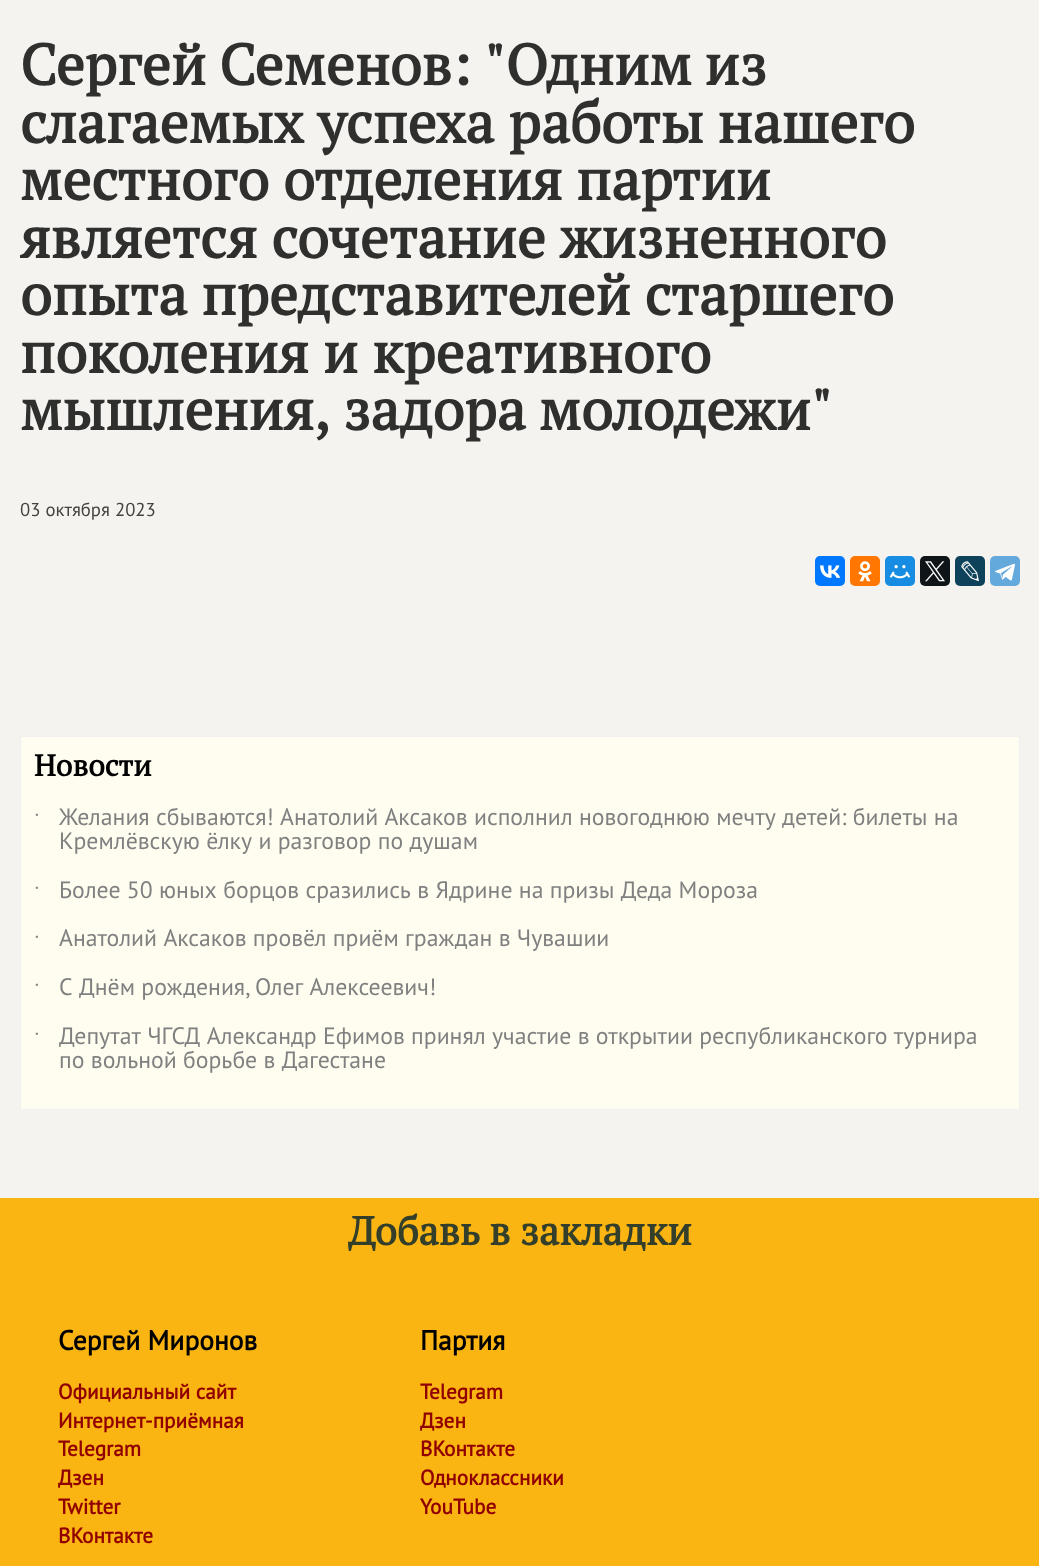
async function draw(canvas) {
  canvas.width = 1039
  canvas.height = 1566
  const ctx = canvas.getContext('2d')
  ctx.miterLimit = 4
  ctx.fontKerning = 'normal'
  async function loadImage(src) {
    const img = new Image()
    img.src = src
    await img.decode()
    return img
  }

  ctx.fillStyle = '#f4f3ef'
  ctx.fillRect(0, 0, 1039, 1566)
  ctx.wordSpacing = '-1px'
  ctx.font = 'bold 57.5px PT Serif'
  ctx.fillStyle = '#2f2f2d'
  ctx.fillText('Сергей Семенов: "Одним из', 20, 85)
  ctx.wordSpacing = '0px'
  ctx.fillText('слагаемых успеха работы нашего', 20, 143)
  ctx.fillText('местного отделения партии', 20, 200)
  ctx.fillText('является сочетание жизненного', 20, 258)
  ctx.fillText('опыта представителей старшего', 20, 315)
  ctx.fillText('поколения и креативного', 20, 373)
  ctx.wordSpacing = '-1px'
  ctx.fillText('мышления, задора молодежи"', 20, 430)
  ctx.wordSpacing = '0px'
  ctx.font = '18.75px PT Sans'
  ctx.fillStyle = '#44433f'
  ctx.fillText('03 октября 2023', 20, 516)
  ctx.fillStyle = '#07f'
  ctx.beginPath()
  ctx.roundRect(815, 556, 30, 30, 5)
  ctx.fill()
  ctx.drawImage(await loadImage('image0.png'), 820, 565, 20, 13)
  ctx.fillStyle = '#f70'
  ctx.beginPath()
  ctx.roundRect(850, 556, 30, 30, 5)
  ctx.fill()
  ctx.drawImage(await loadImage('image1.png'), 858, 561, 14, 21)
  ctx.fillStyle = '#168de2'
  ctx.beginPath()
  ctx.roundRect(885, 556, 30, 30, 5)
  ctx.fill()
  ctx.drawImage(await loadImage('image2.png'), 890, 565, 20, 14)
  ctx.fillStyle = '#0f1419'
  ctx.beginPath()
  ctx.roundRect(920, 556, 30, 30, 5)
  ctx.fill()
  ctx.drawImage(await loadImage('image3.png'), 925, 561, 20, 21)
  ctx.fillStyle = '#0d425a'
  ctx.beginPath()
  ctx.roundRect(955, 556, 30, 30, 5)
  ctx.fill()
  ctx.drawImage(await loadImage('image4.png'), 961, 561, 18, 21)
  ctx.fillStyle = '#64a9dc'
  ctx.beginPath()
  ctx.roundRect(990, 556, 30, 30, 5)
  ctx.fill()
  ctx.drawImage(await loadImage('image5.png'), 995, 563, 20, 18)
  ctx.fillStyle = '#fefdf0'
  ctx.beginPath()
  ctx.rect(20.5, 736.5, 999, 373)
  ctx.fill()
  ctx.strokeStyle = '#f0f0f0'
  ctx.stroke()
  ctx.font = 'bold 30px PT Serif'
  ctx.fillStyle = '#000'
  ctx.fillText('Новости', 34, 776)
  ctx.font = '23.75px Liberation Sans'
  ctx.fillStyle = '#808080'
  ctx.fillText('˙', 34, 831)
  ctx.font = '23.75px PT Sans'
  ctx.fillText('Желания сбываются! Анатолий Аксаков исполнил новогоднюю мечту детей: билеты на', 59, 825)
  ctx.fillText('Кремлёвскую ёлку и разговор по душам', 59, 849)
  ctx.font = '23.75px Liberation Sans'
  ctx.fillText('˙', 34, 904)
  ctx.font = '23.75px PT Sans'
  ctx.fillText('Более 50 юных борцов сразились в Ядрине на призы Деда Мороза', 59, 898)
  ctx.font = '23.75px Liberation Sans'
  ctx.fillText('˙', 34, 953)
  ctx.font = '23.75px PT Sans'
  ctx.fillText('Анатолий Аксаков провёл приём граждан в Чувашии', 59, 946)
  ctx.font = '23.75px Liberation Sans'
  ctx.fillText('˙', 34, 1001)
  ctx.font = '23.75px PT Sans'
  ctx.fillText('С Днём рождения, Олег Алексеевич!', 59, 995)
  ctx.font = '23.75px Liberation Sans'
  ctx.fillText('˙', 34, 1050)
  ctx.font = '23.75px PT Sans'
  ctx.fillText('Депутат ЧГСД Александр Ефимов принял участие в открытии республиканского турнира', 59, 1044)
  ctx.fillText('по вольной борьбе в Дагестане', 59, 1068)
  ctx.fillStyle = '#fab512'
  ctx.fillRect(0, 1198, 1039, 368)
  ctx.font = 'bold 40px PT Serif'
  ctx.fillStyle = '#333f2b'
  ctx.fillText('Добавь в закладки', 348, 1245)
  ctx.font = 'bold 27.5px PT Sans'
  ctx.fillStyle = '#000'
  ctx.fillText('Сергей Миронов', 58, 1350)
  ctx.font = 'bold 21.25px PT Sans'
  ctx.fillStyle = '#900000'
  ctx.fillText('Официальный сайт', 58, 1399)
  ctx.fillText('Интернет-приёмная', 58, 1428)
  ctx.fillText('Telegram', 58, 1456)
  ctx.save()
  ctx.beginPath()
  ctx.rect(58, 1300, 312, 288)
  ctx.clip()
  ctx.fillText('Дзен', 58, 1485)
  ctx.restore()
  ctx.fillText('Twitter', 58, 1514)
  ctx.fillText('ВКонтакте', 58, 1543)
  ctx.font = 'bold 27.5px PT Sans'
  ctx.fillStyle = '#000'
  ctx.fillText('Партия', 420, 1350)
  ctx.font = 'bold 21.25px PT Sans'
  ctx.fillStyle = '#900000'
  ctx.fillText('Telegram', 420, 1399)
  ctx.fillText('Дзен', 420, 1428)
  ctx.fillText('ВКонтакте', 420, 1456)
  ctx.fillText('Одноклассники', 420, 1485)
  ctx.fillText('YouTube', 420, 1514)
}

draw(document.querySelector('canvas'))
